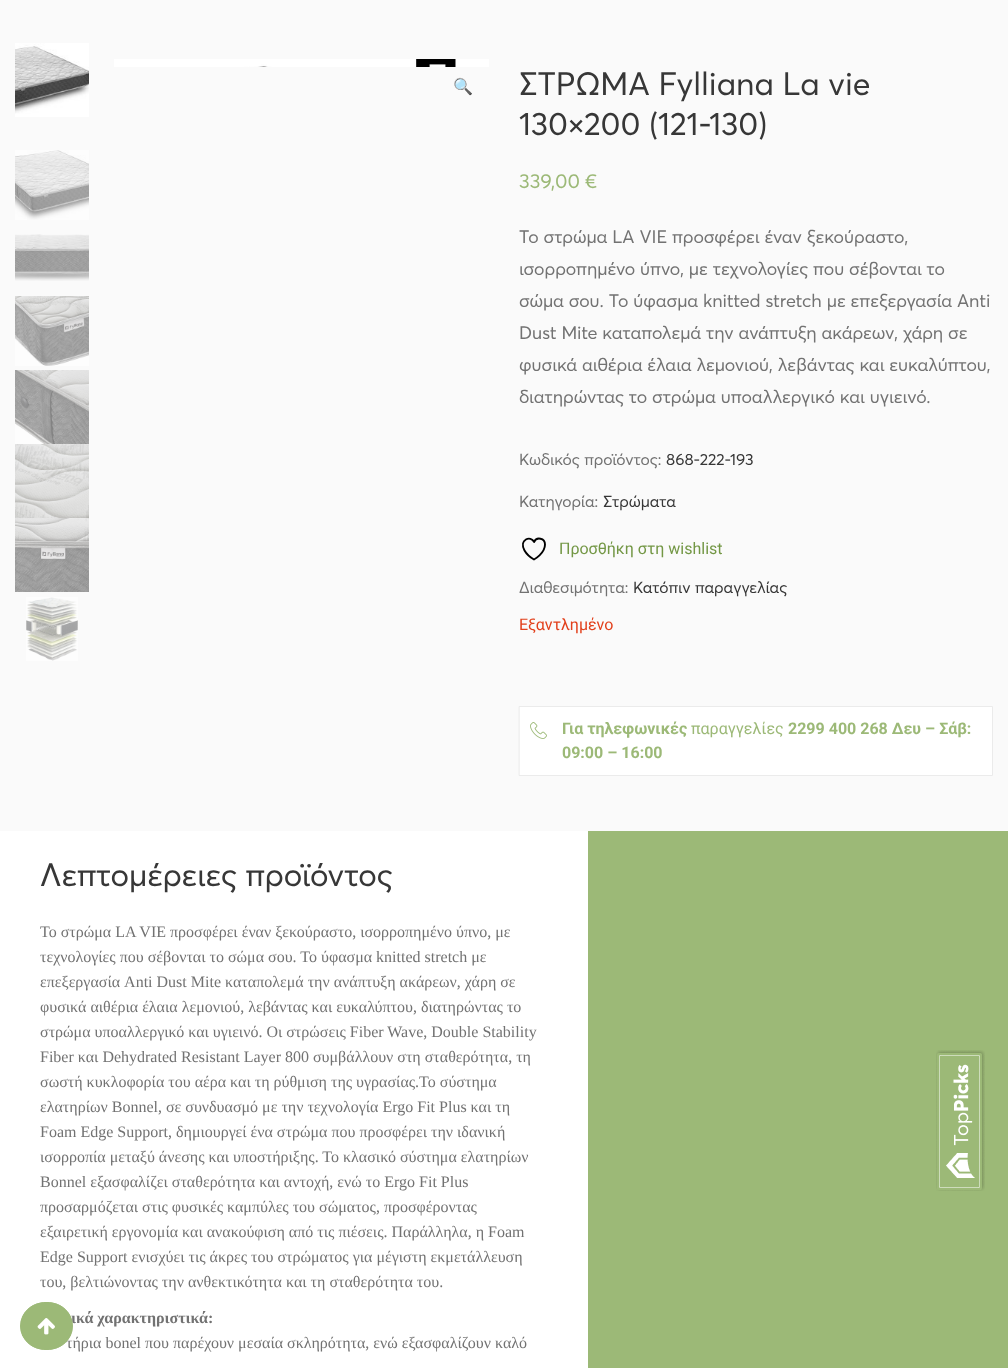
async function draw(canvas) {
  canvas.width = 1008
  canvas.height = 1368
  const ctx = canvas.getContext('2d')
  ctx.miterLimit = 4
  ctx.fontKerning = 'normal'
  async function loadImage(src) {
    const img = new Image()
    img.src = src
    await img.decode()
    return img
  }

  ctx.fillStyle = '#fafafa'
  ctx.fillRect(0, 0, 1008, 1368)
  ctx.drawImage(await loadImage('image0.png'), 15, 43, 74, 74)
  ctx.drawImage(await loadImage('image1.png'), 15, 150, 74, 70)
  ctx.drawImage(await loadImage('image2.png'), 15, 234, 74, 47)
  ctx.drawImage(await loadImage('image3.png'), 15, 296, 74, 70)
  ctx.drawImage(await loadImage('image4.png'), 15, 370, 74, 74)
  ctx.drawImage(await loadImage('image5.png'), 15, 444, 74, 74)
  ctx.drawImage(await loadImage('image6.png'), 15, 518, 74, 74)
  ctx.drawImage(await loadImage('image7.png'), 26, 597, 52, 64)
  ctx.drawImage(await loadImage('image8.png'), 114, 59, 375, 8)
  ctx.font = '16px Noto Color Emoji'
  ctx.fillStyle = '#739745'
  ctx.fillText('🔍', 453, 92)
  ctx.font = '32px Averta'
  ctx.fillStyle = '#373737'
  ctx.fillText('ΣΤΡΩΜΑ Fylliana La vie', 519, 95)
  ctx.fillText('130×200 (121-130)', 519, 135)
  ctx.font = '20px Averta'
  ctx.fillStyle = '#9cb977'
  ctx.fillText('339,00 €', 519, 188)
  ctx.font = '18px Averta'
  ctx.fillStyle = '#727272'
  ctx.fillText('Το στρώμα LA VIE προσφέρει έναν ξεκούραστο,', 519, 243)
  ctx.fillText('ισορροπημένο ύπνο, με τεχνολογίες που σέβονται το', 519, 275)
  ctx.fillText('σώμα σου. Το ύφασμα knitted stretch με επεξεργασία Anti', 519, 307)
  ctx.fillText('Dust Mite καταπολεμά την ανάπτυξη ακάρεων, χάρη σε', 519, 339)
  ctx.fillText('φυσικά αιθέρια έλαια λεμονιού, λεβάντας και ευκαλύπτου,', 519, 371)
  ctx.fillText('διατηρώντας το στρώμα υποαλλεργικό και υγιεινό.', 519, 403)
  ctx.font = '16px Averta'
  ctx.fillText('Κωδικός προϊόντος:', 519, 465)
  ctx.fillStyle = '#373737'
  ctx.fillText('868-222-193', 666, 465)
  ctx.fillStyle = '#727272'
  ctx.fillText('Κατηγορία:', 519, 507)
  ctx.fillStyle = '#373737'
  ctx.fillText('Στρώματα', 603, 507)
  ctx.beginPath()
  ctx.moveTo(545, 544.5)
  ctx.bezierCurveTo(545, 538, 536.5, 536.5, 534, 542)
  ctx.bezierCurveTo(531, 535, 518.5, 539.5, 524.5, 550.5)
  ctx.bezierCurveTo(526.5, 554, 530.5, 557.5, 534, 559.5)
  ctx.bezierCurveTo(534, 559.5, 545, 553.5, 545, 544.5)
  ctx.closePath()
  ctx.strokeStyle = '#000'
  ctx.lineWidth = 1.9
  ctx.lineCap = 'round'
  ctx.lineJoin = 'round'
  ctx.stroke()
  ctx.font = '16px Roboto'
  ctx.fillStyle = '#739745'
  ctx.fillText('Προσθήκη στη wishlist', 559, 554)
  ctx.font = '16px Averta'
  ctx.fillStyle = '#727272'
  ctx.fillText('Διαθεσιμότητα:', 519, 593)
  ctx.fillStyle = '#373737'
  ctx.fillText('Κατόπιν παραγγελίας', 633, 593)
  ctx.font = '16px Roboto'
  ctx.fillStyle = '#e2401c'
  ctx.fillText('Εξαντλημένο', 519, 630)
  ctx.fillStyle = '#fff'
  ctx.beginPath()
  ctx.rect(519.5, 706.5, 473, 69)
  ctx.fill()
  ctx.strokeStyle = '#ebebeb'
  ctx.lineWidth = 1
  ctx.lineJoin = 'miter'
  ctx.stroke()
  ctx.drawImage(await loadImage('image9.png'), 530, 722, 17, 17)
  ctx.font = 'bold 16px Roboto'
  ctx.fillStyle = '#9cb977'
  ctx.fillText('Για τηλεφωνικές', 562, 734)
  ctx.font = '16px Roboto'
  ctx.fillText('παραγγελίες', 691, 734)
  ctx.font = 'bold 16px Roboto'
  ctx.fillText('2299 400 268 Δευ – Σάβ:', 788, 734)
  ctx.fillText('09:00 – 16:00', 562, 758)
  ctx.fillStyle = '#fff'
  ctx.fillRect(0, 831, 588, 537)
  ctx.font = '32px Averta'
  ctx.fillStyle = '#373737'
  ctx.fillText('Λεπτομέρειες προϊόντος', 40, 886)
  ctx.font = '16px Liberation Serif'
  ctx.fillStyle = '#727272'
  ctx.fillText('Το στρώμα LA VIE προσφέρει έναν ξεκούραστο, ισορροπημένο ύπνο, με', 40, 937)
  ctx.fillText('τεχνολογίες που σέβονται το σώμα σου. Το ύφασμα knitted stretch με', 40, 962)
  ctx.fillText('επεξεργασία Anti Dust Mite καταπολεμά την ανάπτυξη ακάρεων, χάρη σε', 40, 987)
  ctx.fillText('φυσικά αιθέρια έλαια λεμονιού, λεβάντας και ευκαλύπτου, διατηρώντας το', 40, 1012)
  ctx.fillText('στρώμα υποαλλεργικό και υγιεινό. Οι στρώσεις Fiber Wave, Double Stability', 40, 1037)
  ctx.fillText('Fiber και Dehydrated Resistant Layer 800 συμβάλλουν στη σταθερότητα, τη', 40, 1062)
  ctx.fillText('σωστή κυκλοφορία του αέρα και τη ρύθμιση της υγρασίας.Το σύστημα', 40, 1087)
  ctx.fillText('ελατηρίων Bonnel, σε συνδυασμό με την τεχνολογία Ergo Fit Plus και τη', 40, 1112)
  ctx.fillText('Foam Edge Support, δημιουργεί ένα στρώμα που προσφέρει την ιδανική', 40, 1137)
  ctx.fillText('ισορροπία μεταξύ άνεσης και υποστήριξης. Το κλασικό σύστημα ελατηρίων', 40, 1162)
  ctx.fillText('Bonnel εξασφαλίζει σταθερότητα και αντοχή, ενώ το Ergo Fit Plus', 40, 1187)
  ctx.fillText('προσαρμόζεται στις φυσικές καμπύλες του σώματος, προσφέροντας', 40, 1212)
  ctx.fillText('εξαιρετική εργονομία και ανακούφιση από τις πιέσεις. Παράλληλα, η Foam', 40, 1237)
  ctx.fillText('Edge Support ενισχύει τις άκρες του στρώματος για μέγιστη εκμετάλλευση', 40, 1262)
  ctx.fillText('του, βελτιώνοντας την ανθεκτικότητα και τη σταθερότητα του.', 40, 1287)
  ctx.font = 'bold 16px Liberation Serif'
  ctx.fillText('ικά χαρακτηριστικά:', 71, 1323)
  ctx.font = '16px Liberation Serif'
  ctx.fillText('τήρια bonel που παρέχουν μεσαία σκληρότητα, ενώ εξασφαλίζουν καλό', 66, 1348)
  ctx.fillStyle = '#9cb977'
  ctx.fillRect(588, 831, 420, 537)
  ctx.drawImage(await loadImage('image10.png'), 936, 1050, 49, 141)
  ctx.beginPath()
  ctx.ellipse(46.5, 1326, 26.5, 24, 0, 0, 2 * Math.PI)
  ctx.fill()
  ctx.beginPath()
  ctx.moveTo(46.5, 1302.5)
  ctx.bezierCurveTo(80.5, 1302.5, 80.5, 1349.5, 46.5, 1349.5)
  ctx.bezierCurveTo(12.5, 1349.5, 12.5, 1302.5, 46.5, 1302.5)
  ctx.closePath()
  ctx.strokeStyle = '#9cb977'
  ctx.lineCap = 'butt'
  ctx.stroke()
  ctx.drawImage(await loadImage('image11.png'), 37, 1318, 18, 17)
}

draw(document.querySelector('canvas'))
